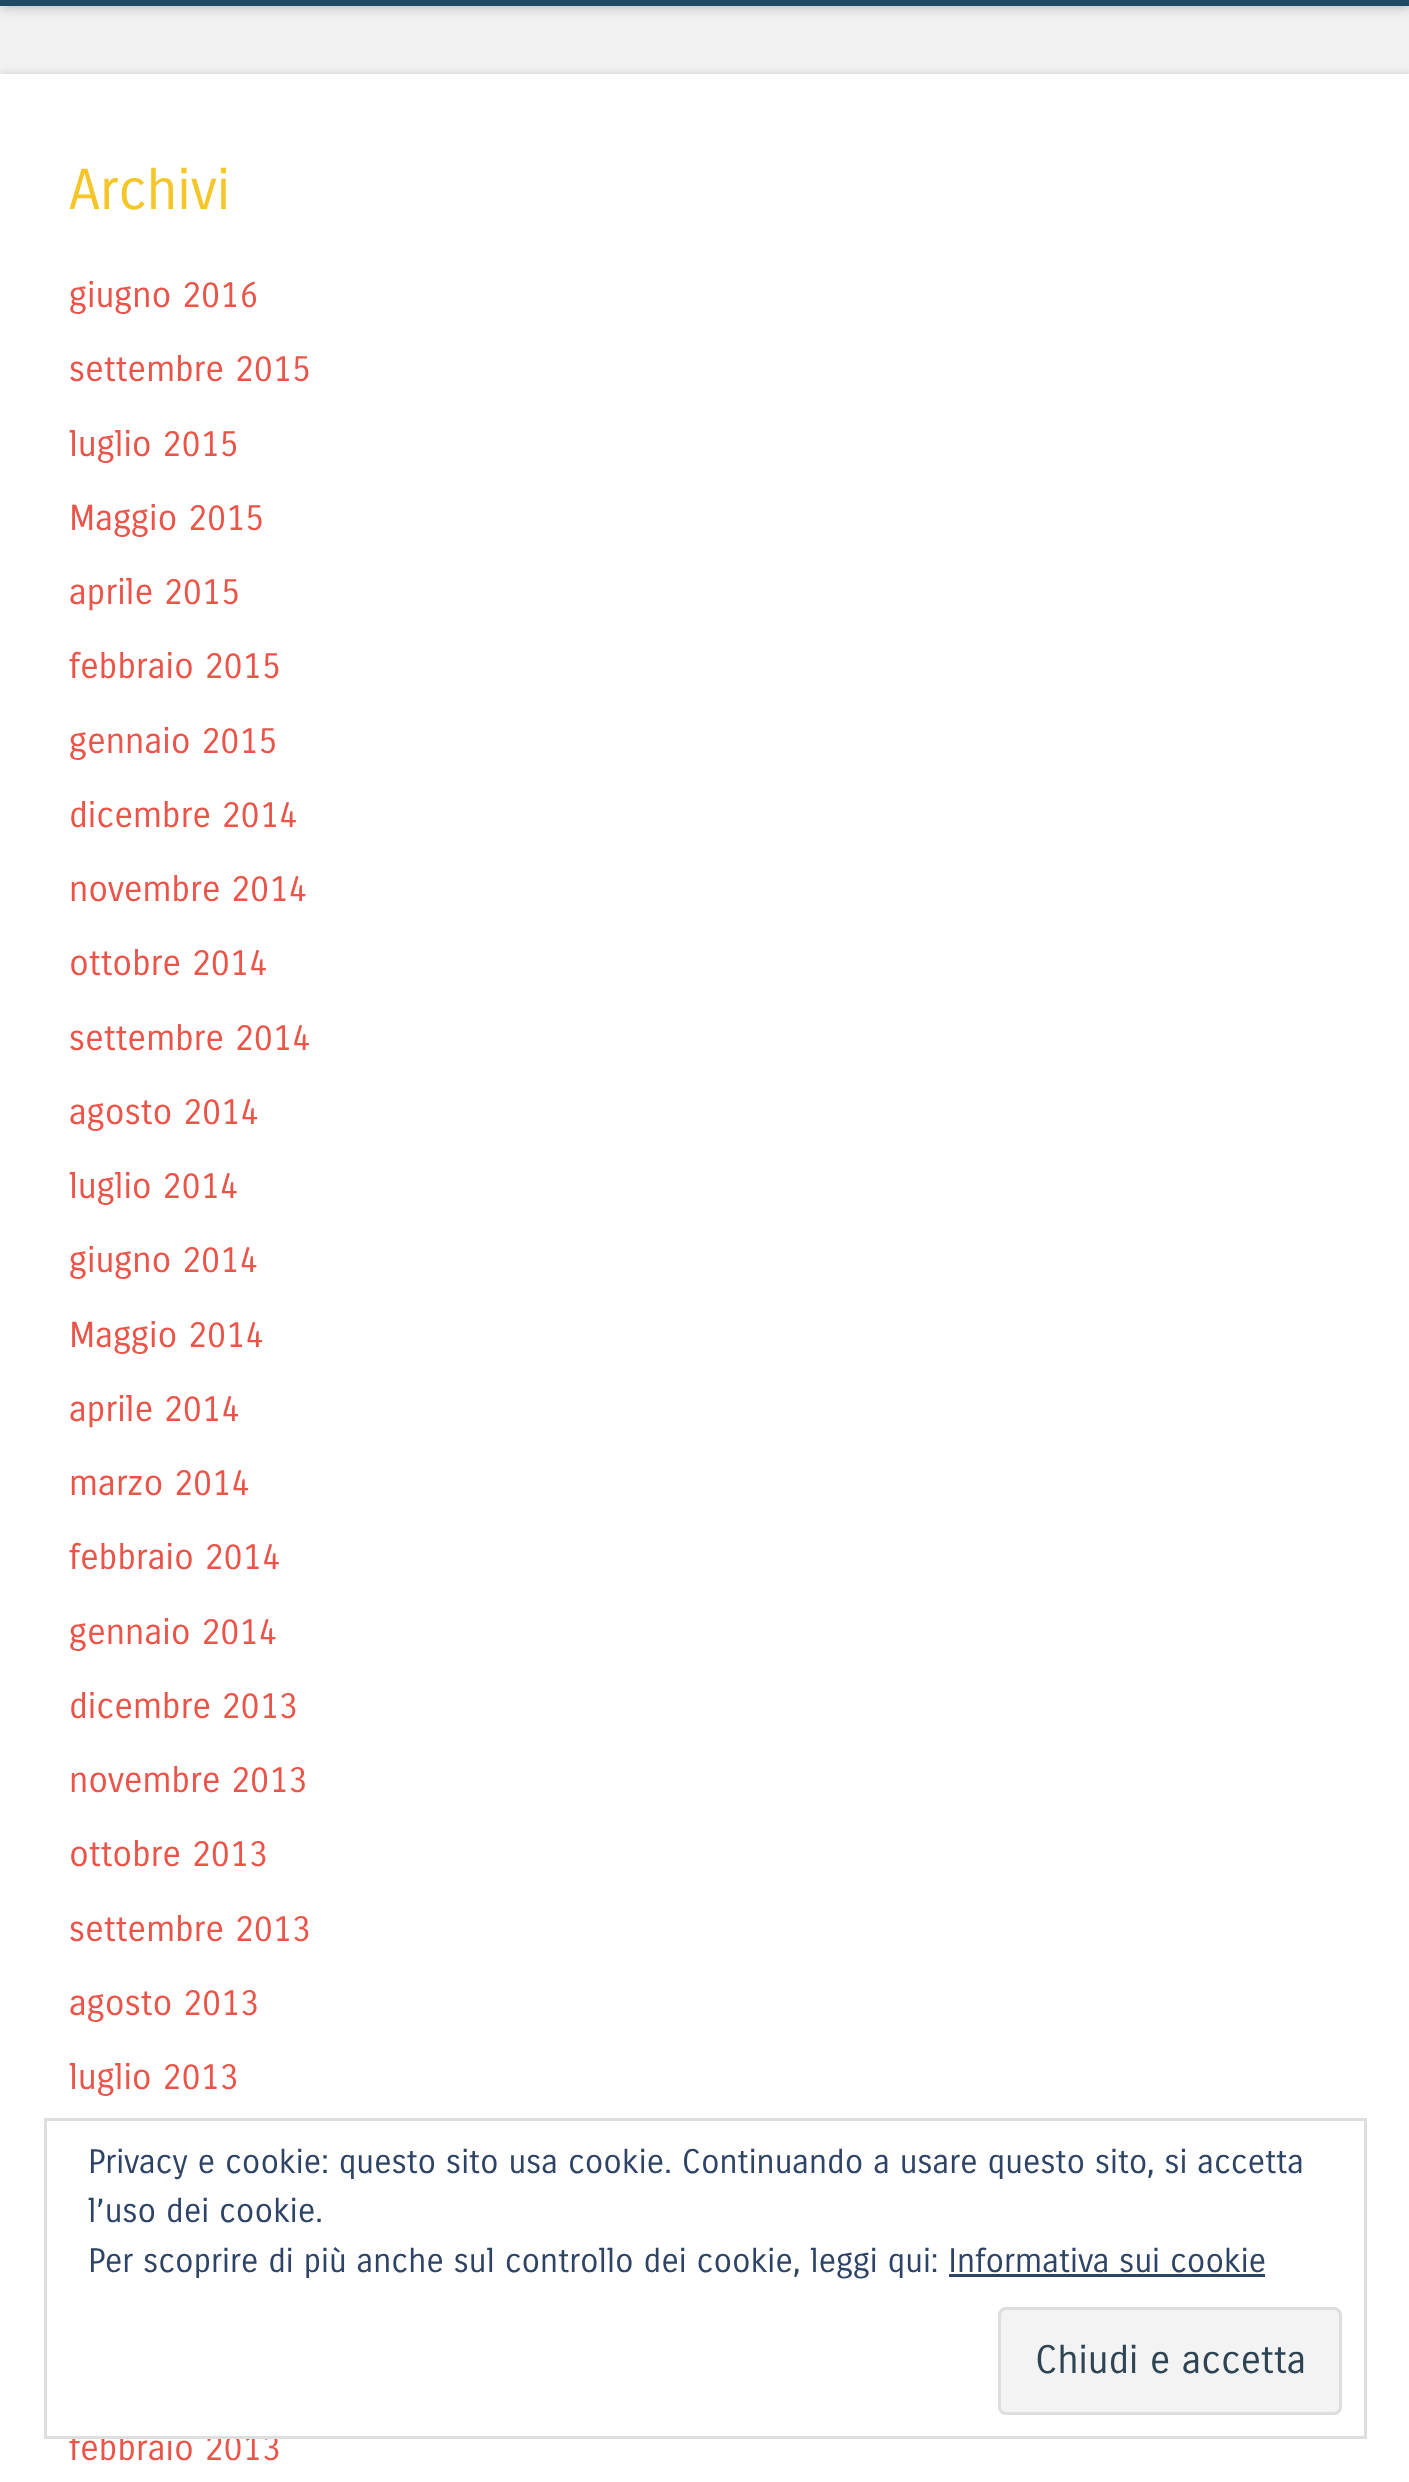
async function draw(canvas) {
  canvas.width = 1409
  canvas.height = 2482
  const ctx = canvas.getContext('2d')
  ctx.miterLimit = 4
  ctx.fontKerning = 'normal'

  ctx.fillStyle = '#f2f2f2'
  ctx.fillRect(0, 0, 1409, 2482)
  ctx.fillStyle = '#64646480'
  ctx.filter = 'blur(7px)'
  ctx.beginPath()
  ctx.rect(0, -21, 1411, 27)
  ctx.fill()
  ctx.filter = 'none'
  ctx.fillStyle = '#1e4a66'
  ctx.fillRect(0, 0, 1409, 6)
  ctx.fillStyle = '#64646440'
  ctx.filter = 'blur(4px)'
  ctx.beginPath()
  ctx.rect(0, 74, 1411, 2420)
  ctx.fill()
  ctx.filter = 'none'
  ctx.fillStyle = '#fff'
  ctx.fillRect(0, 74, 1409, 2408)
  ctx.font = '56px Carrois Gothic'
  ctx.fillStyle = '#f6c628'
  ctx.fillText('Archivi', 69, 209)
  ctx.font = '35.25px Carrois Gothic'
  ctx.fillStyle = '#ea5449'
  ctx.fillText('giugno 2016', 69, 307)
  ctx.fillText('settembre 2015', 69, 381)
  ctx.fillText('luglio 2015', 69, 456)
  ctx.fillText('Maggio 2015', 69, 530)
  ctx.fillText('aprile 2015', 69, 604)
  ctx.fillText('febbraio 2015', 69, 678)
  ctx.fillText('gennaio 2015', 69, 753)
  ctx.fillText('dicembre 2014', 69, 827)
  ctx.fillText('novembre 2014', 69, 901)
  ctx.fillText('ottobre 2014', 69, 975)
  ctx.fillText('settembre 2014', 69, 1050)
  ctx.fillText('agosto 2014', 69, 1124)
  ctx.fillText('luglio 2014', 69, 1198)
  ctx.fillText('giugno 2014', 69, 1272)
  ctx.fillText('Maggio 2014', 69, 1347)
  ctx.fillText('aprile 2014', 69, 1421)
  ctx.fillText('marzo 2014', 69, 1495)
  ctx.fillText('febbraio 2014', 69, 1569)
  ctx.fillText('gennaio 2014', 69, 1644)
  ctx.fillText('dicembre 2013', 69, 1718)
  ctx.fillText('novembre 2013', 69, 1792)
  ctx.fillText('ottobre 2013', 69, 1866)
  ctx.fillText('settembre 2013', 69, 1941)
  ctx.fillText('agosto 2013', 69, 2015)
  ctx.fillText('luglio 2013', 69, 2089)
  ctx.fillText('febbraio 2013', 69, 2460)
  ctx.fillStyle = '#fff'
  ctx.fillRect(72, 2433, 202, 3)
  ctx.strokeStyle = '#dedede'
  ctx.lineWidth = 3
  ctx.strokeRect(45.5, 2119.5, 1320, 318)
  ctx.font = '33px Carrois Gothic'
  ctx.fillStyle = '#2e4467'
  ctx.fillText('Privacy e cookie: questo sito usa cookie. Continuando a usare questo sito, si accetta', 88, 2173)
  ctx.fillText('l’uso dei cookie.', 88, 2222)
  ctx.fillText('Per scoprire di più anche sul controllo dei cookie, leggi qui: Informativa sui cookie', 88, 2272)
  ctx.fillRect(949, 2274, 316, 3)
  ctx.fillStyle = '#f3f3f3'
  ctx.beginPath()
  ctx.roundRect(999.5, 2308.5, 341, 105, 6.5)
  ctx.fill()
  ctx.stroke()
  ctx.font = '38.5px Carrois Gothic'
  ctx.fillStyle = '#2e4453'
  ctx.fillText('Chiudi e accetta', 1035, 2373)
}

draw(document.querySelector('canvas'))
